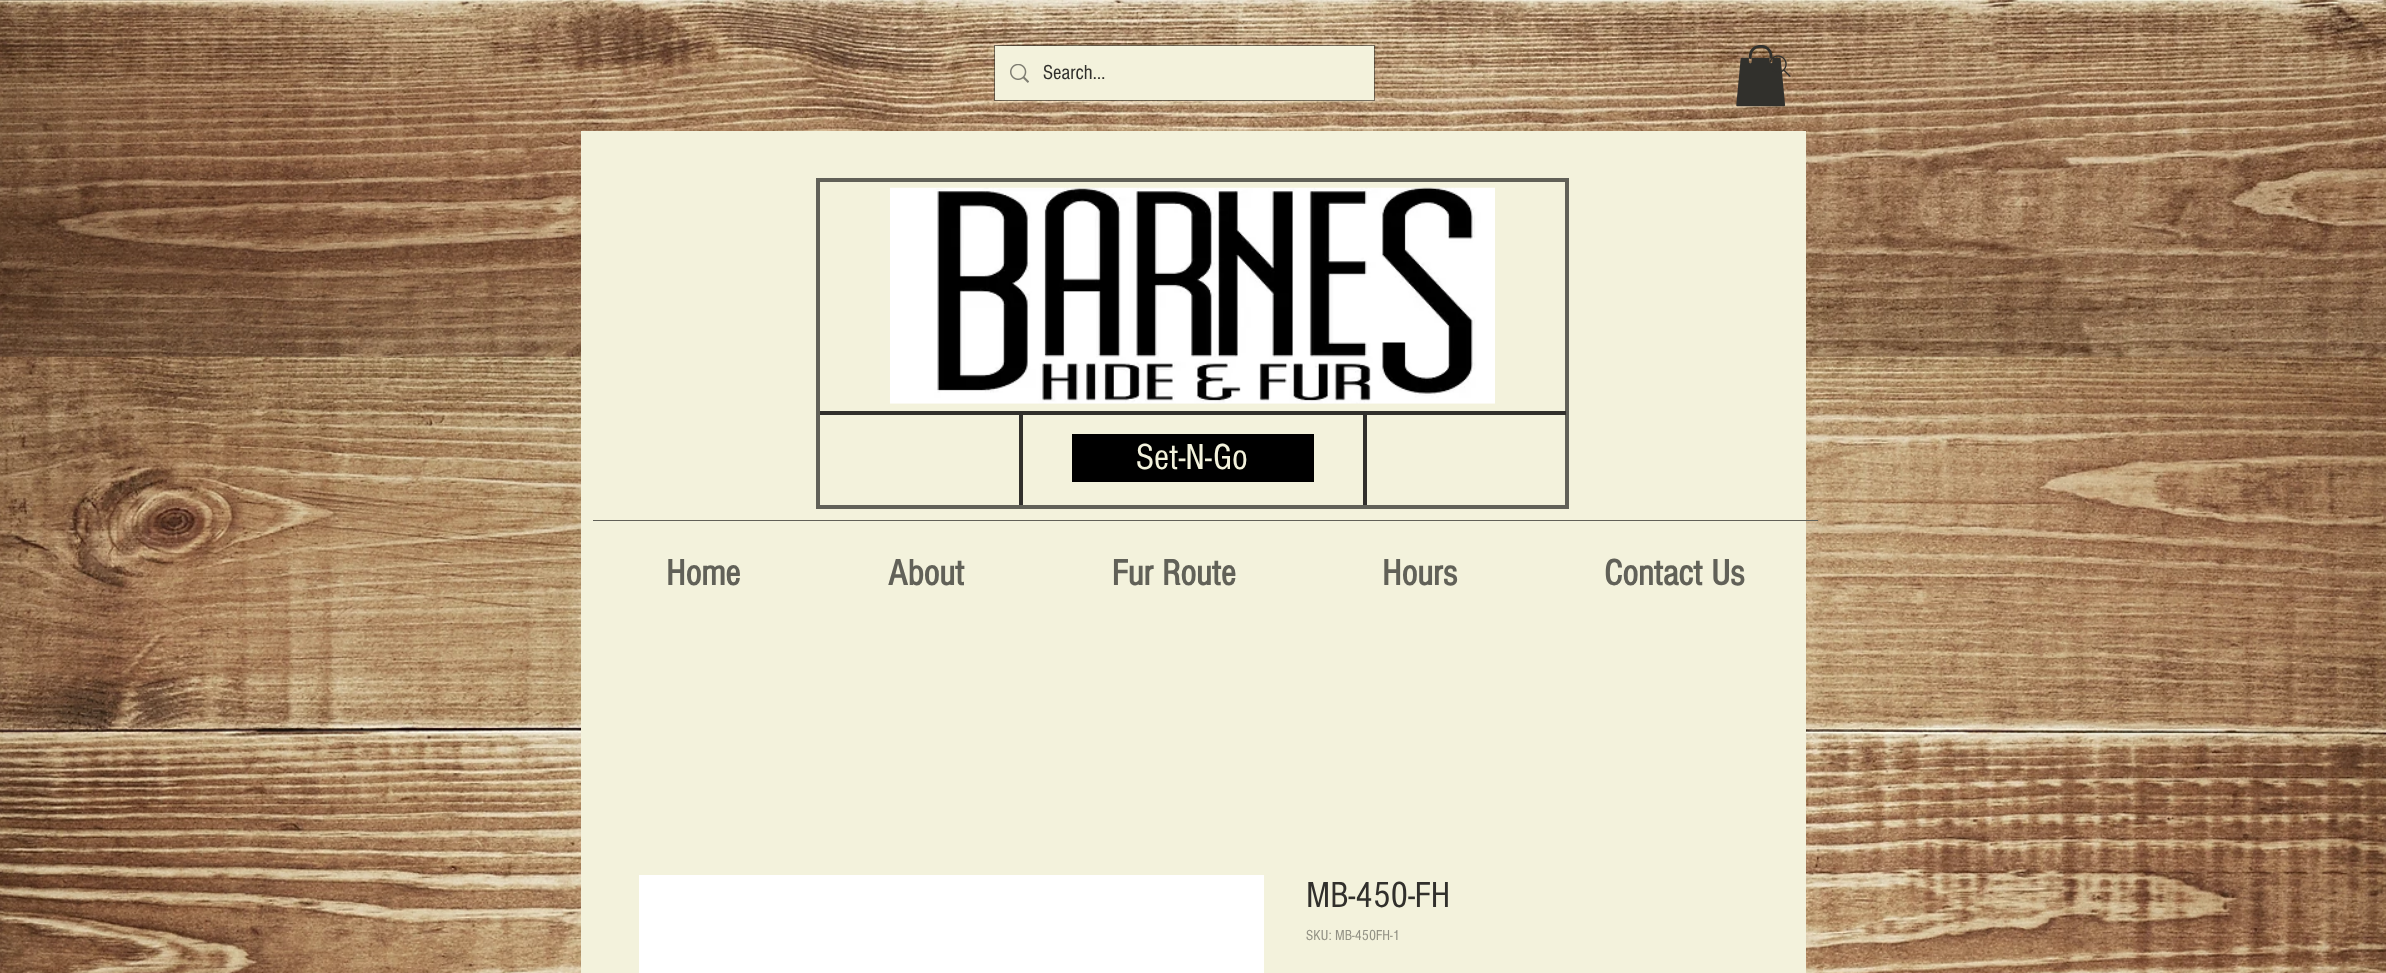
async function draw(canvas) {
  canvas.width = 2386
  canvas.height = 973
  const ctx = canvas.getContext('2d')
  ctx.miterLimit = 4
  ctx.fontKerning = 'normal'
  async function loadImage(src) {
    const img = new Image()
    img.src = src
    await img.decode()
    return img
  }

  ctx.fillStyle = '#fff'
  ctx.fillRect(0, 0, 2386, 973)
  ctx.drawImage(await loadImage('image0.png'), 0, 0, 2386, 973)
  ctx.drawImage(await loadImage('image1.png'), 1736, 45, 50, 62)
  ctx.strokeStyle = '#31302c99'
  ctx.strokeRect(994.5, 45.5, 380, 55)
  ctx.fillStyle = '#f3f2dc'
  ctx.fillRect(995, 46, 379, 54)
  ctx.drawImage(await loadImage('image2.png'), 1010, 64, 19, 19)
  ctx.font = '21px "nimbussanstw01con"'
  ctx.fillStyle = '#31302c'
  ctx.fillText('Search...', 1043, 79)
  ctx.drawImage(await loadImage('image3.png'), 1769, 55, 22, 22)
  ctx.fillStyle = '#f3f2dc'
  ctx.fillRect(581, 131, 1225, 842)
  ctx.strokeStyle = '#616158'
  ctx.lineWidth = 4
  ctx.strokeRect(818, 180, 749, 327)
  ctx.drawImage(await loadImage('image4.png'), 890, 187, 605, 217)
  ctx.fillStyle = '#31302c'
  ctx.fillRect(820, 411, 746, 4)
  ctx.fillRect(1019, 411, 4, 94)
  ctx.fillStyle = '#000'
  ctx.fillRect(1072, 434, 242, 48)
  ctx.font = '37.5px "nimbussanstw01con"'
  ctx.fillStyle = '#f3f2dc'
  ctx.fillText('Set-N-Go', 1136, 469)
  ctx.fillStyle = '#31302c'
  ctx.fillRect(1363, 411, 4, 94)
  ctx.fillStyle = '#616158'
  ctx.fillRect(593, 520, 1225, 1)
  ctx.font = 'bold 37.5px "nimbussanstw01con"'
  ctx.fillText('Home', 666, 585)
  ctx.fillText('About', 888, 585)
  ctx.fillText('Fur Route', 1112, 585)
  ctx.fillText('Hours', 1382, 585)
  ctx.fillText('Contact Us', 1604, 585)
  ctx.fillStyle = '#fff'
  ctx.fillRect(639, 875, 625, 98)
  ctx.font = '37.5px "nimbussanstw01con"'
  ctx.fillStyle = '#31302c'
  ctx.fillText('MB-450-FH', 1306, 907)
  ctx.font = '15px "nimbussanstw01con"'
  ctx.fillStyle = '#929184'
  ctx.fillText('SKU: MB-450FH-1', 1306, 940)
}

draw(document.querySelector('canvas'))
